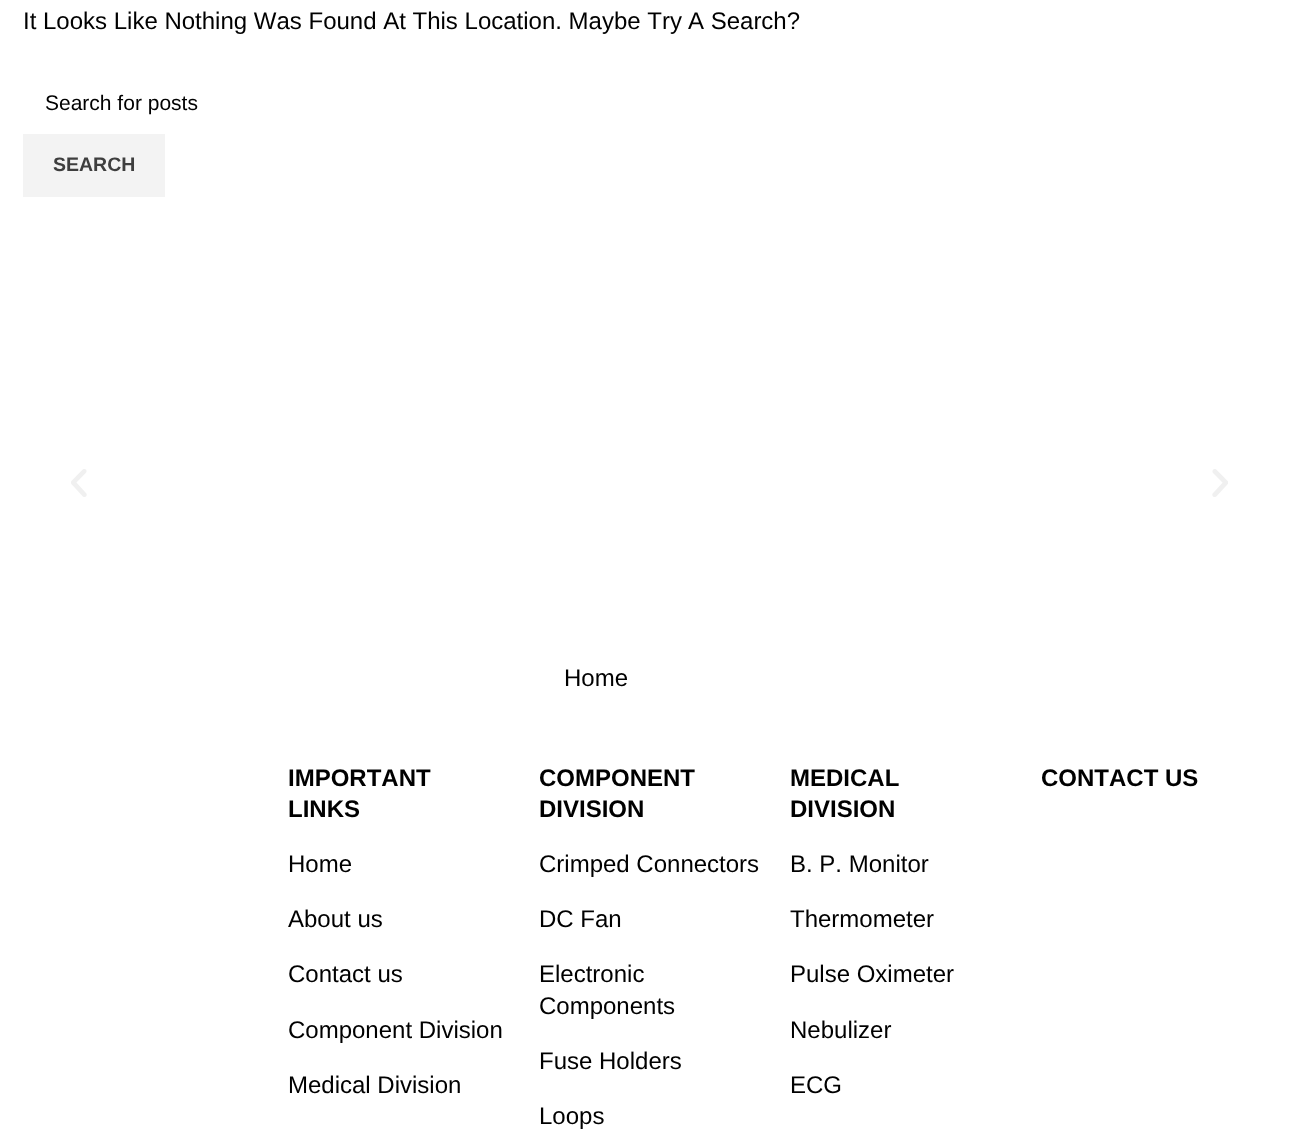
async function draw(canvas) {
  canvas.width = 1298
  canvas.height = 1134
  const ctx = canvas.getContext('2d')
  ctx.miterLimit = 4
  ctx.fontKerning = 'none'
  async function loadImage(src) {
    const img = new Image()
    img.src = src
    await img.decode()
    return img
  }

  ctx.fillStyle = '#fff'
  ctx.fillRect(0, 0, 1298, 1134)
  ctx.font = '24px Liberation Sans'
  ctx.fillStyle = '#000'
  ctx.fillText('It Looks Like Nothing Was Found At This Location. Maybe Try', 23, 29)
  ctx.fillText('A Search?', 688, 29)
  ctx.font = '21px Liberation Sans'
  ctx.fillText('Search for posts', 45, 110)
  ctx.fillStyle = '#f3f3f3'
  ctx.fillRect(23, 134, 142, 63)
  ctx.font = 'bold 19.5px Liberation Sans'
  ctx.fillStyle = '#3e3e3e'
  ctx.fillText('SEARCH', 53, 171)
  ctx.drawImage(await loadImage('image0.png'), 71, 469, 16, 28)
  ctx.drawImage(await loadImage('image1.png'), 1212, 469, 16, 28)
  ctx.font = '24px Liberation Sans'
  ctx.fillStyle = '#000'
  ctx.fillText('Home', 564, 686)
  ctx.font = 'bold 24px Liberation Sans'
  ctx.fillText('IMPORTANT', 288, 786)
  ctx.fillText('LINKS', 288, 817)
  ctx.font = '24px Liberation Sans'
  ctx.fillText('Home', 288, 872)
  ctx.fillText('About us', 288, 927)
  ctx.fillText('Contact us', 288, 982)
  ctx.fillText('Component Division', 288, 1038)
  ctx.fillText('Medical Division', 288, 1093)
  ctx.font = 'bold 24px Liberation Sans'
  ctx.fillText('COMPONENT', 539, 786)
  ctx.fillText('DIVISION', 539, 817)
  ctx.font = '24px Liberation Sans'
  ctx.fillText('Crimped Connectors', 539, 872)
  ctx.fillText('DC Fan', 539, 927)
  ctx.fillText('Electronic', 539, 982)
  ctx.fillText('Components', 539, 1014)
  ctx.fillText('Fuse Holders', 539, 1069)
  ctx.fillText('Loops', 539, 1124)
  ctx.font = 'bold 24px Liberation Sans'
  ctx.fillText('MEDICAL', 790, 786)
  ctx.fillText('DIVISION', 790, 817)
  ctx.font = '24px Liberation Sans'
  ctx.fillText('B. P. Monitor', 790, 872)
  ctx.fillText('Thermometer', 790, 927)
  ctx.fillText('Pulse Oximeter', 790, 982)
  ctx.fillText('Nebulizer', 790, 1038)
  ctx.fillText('ECG', 790, 1093)
  ctx.font = 'bold 24px Liberation Sans'
  ctx.fillText('CONTACT US', 1041, 786)
}

draw(document.querySelector('canvas'))
